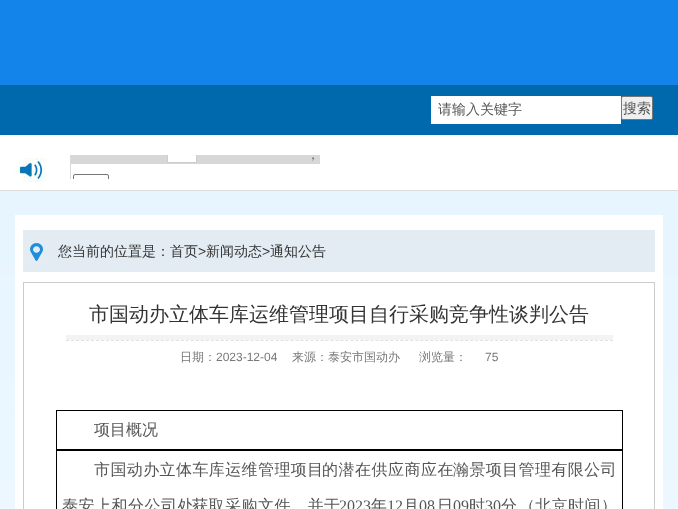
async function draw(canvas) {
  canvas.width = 678
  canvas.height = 509
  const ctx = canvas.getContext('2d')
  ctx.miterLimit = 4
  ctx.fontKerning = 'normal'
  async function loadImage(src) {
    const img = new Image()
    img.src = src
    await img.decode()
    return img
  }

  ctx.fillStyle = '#fff'
  ctx.fillRect(0, 0, 678, 509)
  ctx.drawImage(await loadImage('image0.png'), 0, 191, 678, 318)
  ctx.fillStyle = '#1385ea'
  ctx.fillRect(0, 0, 678, 85)
  ctx.fillStyle = '#0069ae'
  ctx.fillRect(0, 85, 678, 50)
  ctx.fillStyle = '#fff'
  ctx.fillRect(431, 96, 190, 28)
  ctx.font = '500 14px WenQuanYi Zen Hei'
  ctx.fillStyle = '#555'
  ctx.fillText('请输入关键字', 438, 114)
  ctx.fillStyle = '#efefef'
  ctx.beginPath()
  ctx.roundRect(621.5, 96.5, 31, 23, 1.5)
  ctx.fill()
  ctx.strokeStyle = '#767676'
  ctx.stroke()
  ctx.fillStyle = '#555'
  ctx.fillText('搜索', 623, 113)
  ctx.fillStyle = '#dcdcdc'
  ctx.fillRect(0, 190, 678, 1)
  ctx.drawImage(await loadImage('image1.png'), 15, 158, 32, 24)
  ctx.fillStyle = '#d7d7d7'
  ctx.fillRect(71, 155, 249, 9)
  ctx.fillStyle = '#dadada'
  ctx.fillRect(70, 155, 1, 24)
  ctx.fillStyle = '#fff'
  ctx.fillRect(167, 155, 30, 7)
  ctx.save()
  ctx.beginPath()
  ctx.rect(70, 155, 250, 24)
  ctx.clip()
  ctx.strokeStyle = '#ccc'
  ctx.strokeRect(167.5, 147.5, 29, 15)
  ctx.restore()
  ctx.font = '500 12px WenQuanYi Zen Hei'
  ctx.fillStyle = '#555'
  ctx.fillText('，', 307, 159)
  ctx.save()
  ctx.beginPath()
  ctx.rect(70, 155, 250, 24)
  ctx.clip()
  ctx.beginPath()
  ctx.roundRect(73.5, 174.5, 35, 17, 1.5)
  ctx.stroke()
  ctx.restore()
  ctx.fillStyle = '#fff'
  ctx.fillRect(15, 215, 648, 294)
  ctx.fillStyle = '#e3ecf3'
  ctx.fillRect(23, 230, 632, 42)
  ctx.drawImage(await loadImage('image2.png'), 29, 243, 14, 18)
  ctx.font = '500 14px WenQuanYi Zen Hei'
  ctx.fillStyle = '#333'
  ctx.fillText('您当前的位置是：首页', 58, 256)
  ctx.font = '14px Liberation Sans'
  ctx.fillText('>', 198, 256)
  ctx.font = '500 14px WenQuanYi Zen Hei'
  ctx.fillText('新闻动态', 206, 256)
  ctx.font = '14px Liberation Sans'
  ctx.fillText('>', 262, 256)
  ctx.font = '500 14px WenQuanYi Zen Hei'
  ctx.fillText('通知公告', 270, 256)
  ctx.strokeStyle = '#ccc'
  ctx.strokeRect(23.5, 282.5, 631, 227)
  ctx.fillStyle = '#f3f3f3'
  ctx.fillRect(66, 335, 547, 5)
  ctx.beginPath()
  ctx.moveTo(66, 340.5)
  ctx.lineTo(613, 340.5)
  ctx.strokeStyle = '#e1e1e1'
  ctx.setLineDash([3, 1.99])
  ctx.stroke()
  ctx.font = '500 20px WenQuanYi Zen Hei'
  ctx.fillStyle = '#333'
  ctx.fillText('市国动办立体车库运维管理项目自行采购竞争性谈判公告', 89, 321)
  ctx.font = '500 12px WenQuanYi Zen Hei'
  ctx.fillStyle = '#777'
  ctx.fillText('日期：', 180, 361)
  ctx.font = '12px Liberation Sans'
  ctx.fillText('2023-12-04', 216, 361)
  ctx.font = '500 12px WenQuanYi Zen Hei'
  ctx.fillText('来源：泰安市国动办', 292, 361)
  ctx.fillText('浏览量：', 419, 361)
  ctx.font = '12px Liberation Sans'
  ctx.fillText('75', 485, 361)
  ctx.strokeStyle = '#000'
  ctx.setLineDash([])
  ctx.strokeRect(56.5, 410.5, 566, 39)
  ctx.font = '500 16px WenQuanYi Zen Hei'
  ctx.fillStyle = '#555'
  ctx.fillText('项目概况', 94, 435)
  ctx.strokeRect(56.5, 450.5, 566, 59)
  ctx.letterSpacing = '0.4px'
  ctx.fillText('市国动办立体车库运维管理项目', 94, 475)
  ctx.letterSpacing = '0.5px'
  ctx.fillText('的潜在供应商应在', 322, 475)
  ctx.letterSpacing = '0.4px'
  ctx.fillText('瀚景项目管理有限公司', 453, 475)
  ctx.letterSpacing = '0.5px'
  ctx.fillText('泰安上和分公司处', 62, 511)
  ctx.fillText('获取采购文件，并于', 192, 511)
  ctx.letterSpacing = '0px'
  ctx.font = '16px Liberation Serif'
  ctx.fillText('2023', 339, 511)
  ctx.font = '500 16px WenQuanYi Zen Hei'
  ctx.fillText('年', 371, 511)
  ctx.font = '16px Liberation Serif'
  ctx.fillText('12', 387, 511)
  ctx.font = '500 16px WenQuanYi Zen Hei'
  ctx.fillText('月', 403, 511)
  ctx.font = '16px Liberation Serif'
  ctx.fillText('08', 419, 511)
  ctx.font = '500 16px WenQuanYi Zen Hei'
  ctx.fillText('日', 437, 511)
  ctx.font = '16px Liberation Serif'
  ctx.fillText('09', 453, 511)
  ctx.font = '500 16px WenQuanYi Zen Hei'
  ctx.fillText('时', 469, 511)
  ctx.font = '16px Liberation Serif'
  ctx.fillText('30', 485, 511)
  ctx.font = '500 16px WenQuanYi Zen Hei'
  ctx.fillText('分', 501, 511)
  ctx.fillText('（', 519, 511)
  ctx.letterSpacing = '0.5px'
  ctx.fillText('北京时间）', 535, 511)
}

draw(document.querySelector('canvas'))
